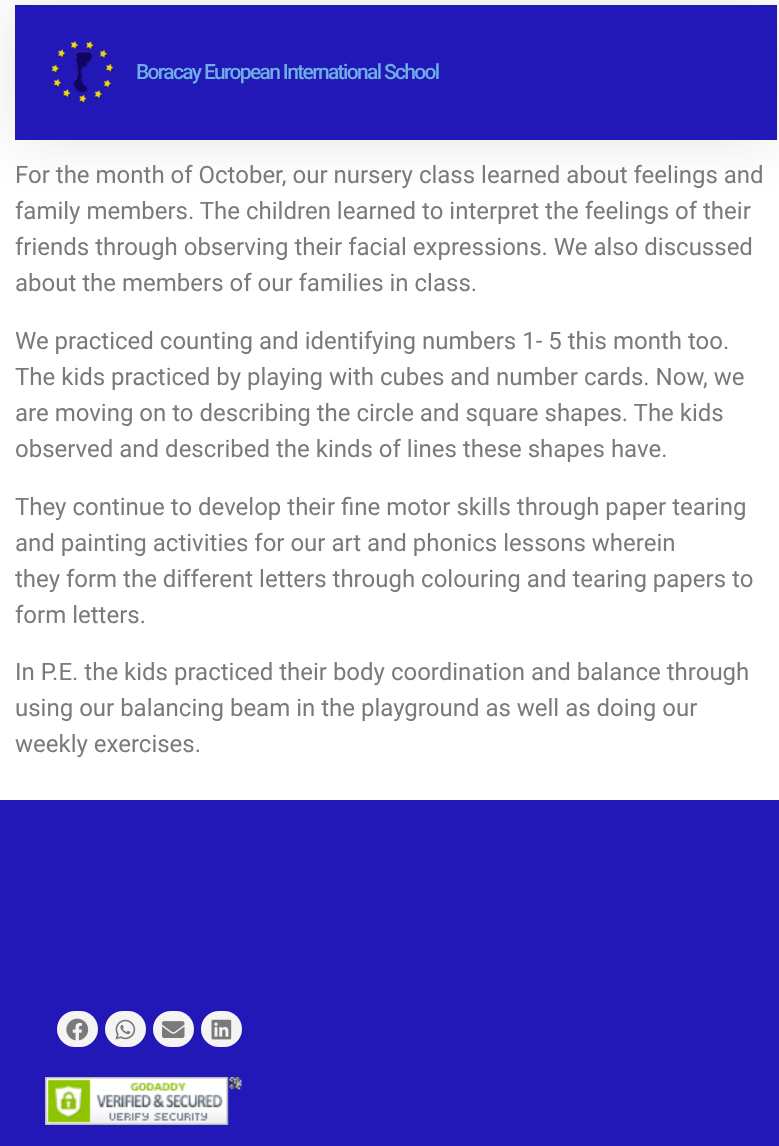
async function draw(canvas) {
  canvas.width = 779
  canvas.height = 1146
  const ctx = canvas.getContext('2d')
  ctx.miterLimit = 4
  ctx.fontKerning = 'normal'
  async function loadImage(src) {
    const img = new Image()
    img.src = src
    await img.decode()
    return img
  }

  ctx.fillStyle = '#fff'
  ctx.fillRect(0, 0, 779, 1146)
  ctx.fillStyle = '#0000001a'
  ctx.filter = 'blur(28.5px)'
  ctx.beginPath()
  ctx.rect(15, 5, 762, 135)
  ctx.fill()
  ctx.filter = 'none'
  ctx.fillStyle = '#2118b7'
  ctx.fillRect(15, 5, 762, 135)
  ctx.drawImage(await loadImage('image0.png'), 51, 40, 63, 64)
  ctx.letterSpacing = '-1.65px'
  ctx.font = '500 21px Roboto'
  ctx.fillStyle = '#6eaee4'
  ctx.fillText('Boracay European International School', 136, 79)
  ctx.letterSpacing = '0px'
  ctx.font = '24px Roboto'
  ctx.fillStyle = '#7a7a7a'
  ctx.fillText('For the month of October, our nursery class learned about feelings and', 15, 183)
  ctx.fillText('family members. The children learned to interpret the feelings of their', 15, 219)
  ctx.fillText('friends through observing their facial expressions. We also discussed', 15, 255)
  ctx.fillText('about the members of our families in class.', 15, 291)
  ctx.fillText('We practiced counting and identifying numbers 1- 5 this month too.', 15, 349)
  ctx.fillText('The kids practiced by playing with cubes and number cards. Now, we', 15, 385)
  ctx.fillText('are moving on to describing the circle and square shapes. The kids', 15, 421)
  ctx.fillText('observed and described the kinds of lines these shapes have.', 15, 457)
  ctx.fillText('They continue to develop their fine motor skills through paper tearing', 15, 515)
  ctx.fillText('and painting activities for our art and phonics lessons wherein', 15, 551)
  ctx.fillText('they form the different letters through colouring and tearing papers to', 15, 587)
  ctx.fillText('form letters.', 15, 623)
  ctx.fillText('In P.E. the kids practiced their body coordination and balance through', 15, 680)
  ctx.fillText('using our balancing beam in the playground as well as doing our', 15, 716)
  ctx.fillText('weekly exercises.', 15, 752)
  ctx.fillStyle = '#2118b7'
  ctx.fillRect(0, 800, 779, 346)
  ctx.fillStyle = '#f5f4f2'
  ctx.beginPath()
  ctx.roundRect(57, 1011, 41, 36, 18)
  ctx.fill()
  ctx.drawImage(await loadImage('image1.png'), 66, 1018, 23, 23)
  ctx.beginPath()
  ctx.roundRect(105, 1011, 41, 36, 18)
  ctx.fill()
  ctx.drawImage(await loadImage('image2.png'), 115, 1019, 21, 21)
  ctx.beginPath()
  ctx.roundRect(153, 1011, 41, 36, 18)
  ctx.fill()
  ctx.drawImage(await loadImage('image3.png'), 162, 1021, 23, 17)
  ctx.beginPath()
  ctx.roundRect(201, 1011, 41, 36, 18)
  ctx.fill()
  ctx.drawImage(await loadImage('image4.png'), 211, 1019, 21, 21)
  ctx.drawImage(await loadImage('image5.png'), 45, 1077, 197, 48)
}

draw(document.querySelector('canvas'))
